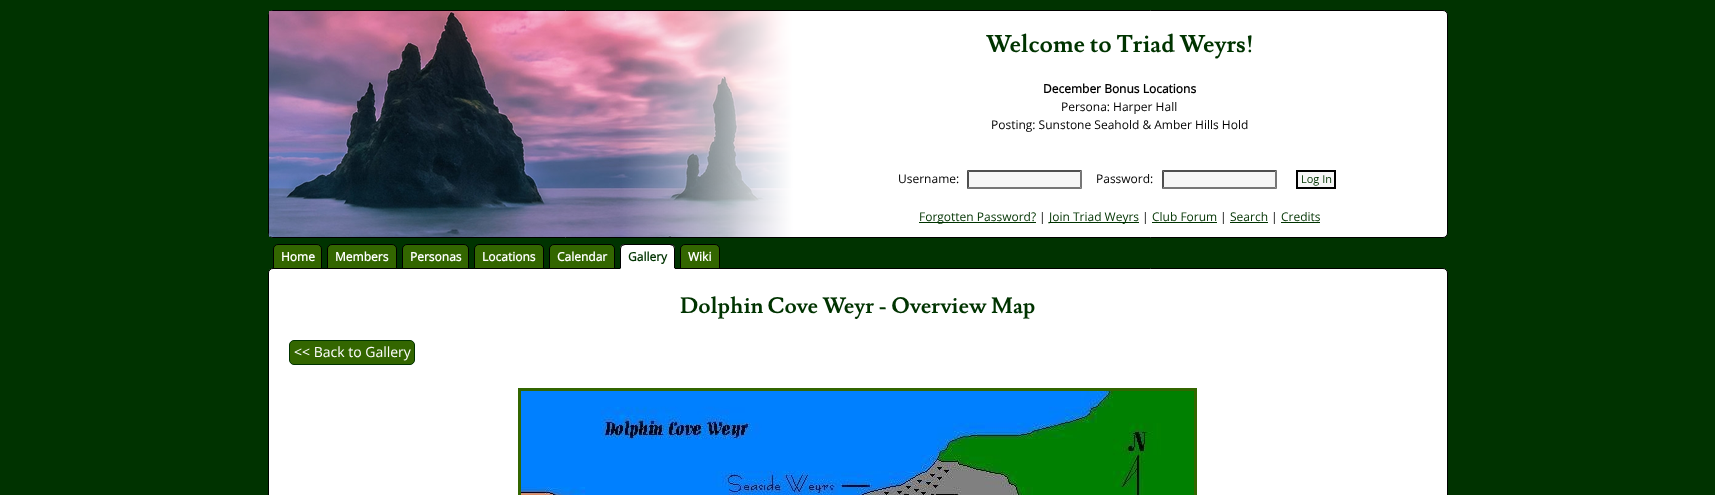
async function draw(canvas) {
  canvas.width = 1715
  canvas.height = 495
  const ctx = canvas.getContext('2d')
  ctx.miterLimit = 4
  ctx.fontKerning = 'normal'
  async function loadImage(src) {
    const img = new Image()
    img.src = src
    await img.decode()
    return img
  }

  ctx.fillStyle = '#030'
  ctx.fillRect(0, 0, 1715, 495)
  ctx.fillStyle = '#fff'
  ctx.beginPath()
  ctx.roundRect(268.5, 10.5, 1179, 227, 4.5)
  ctx.fill()
  ctx.strokeStyle = '#000'
  ctx.stroke()
  ctx.drawImage(await loadImage('image0.png'), 269, 11, 524, 226)
  ctx.font = 'bold 24px Lusitana'
  ctx.fillStyle = '#030'
  ctx.fillText('Welcome to Triad Weyrs!', 986, 52)
  ctx.font = 'bold 12px Open Sans'
  ctx.fillStyle = '#000'
  ctx.fillText('December Bonus Locations', 1043, 93)
  ctx.font = '12px Open Sans'
  ctx.fillText('Persona: Harper Hall', 1061, 111)
  ctx.fillText('Posting: Sunstone Seahold & Amber Hills Hold', 991, 129)
  ctx.fillText('Username:', 898, 183)
  ctx.fillStyle = '#f6f6f6'
  ctx.fillRect(967, 170, 115, 19)
  ctx.fillStyle = '#4f4f4f'
  ctx.beginPath()
  ctx.moveTo(967, 170)
  ctx.lineTo(1082, 170)
  ctx.lineTo(1080, 172)
  ctx.lineTo(969, 172)
  ctx.closePath()
  ctx.fill()
  ctx.fillStyle = '#767676'
  ctx.beginPath()
  ctx.moveTo(1082, 170)
  ctx.lineTo(1082, 189)
  ctx.lineTo(1080, 187)
  ctx.lineTo(1080, 172)
  ctx.closePath()
  ctx.fill()
  ctx.beginPath()
  ctx.moveTo(1082, 189)
  ctx.lineTo(967, 189)
  ctx.lineTo(969, 187)
  ctx.lineTo(1080, 187)
  ctx.closePath()
  ctx.fill()
  ctx.fillStyle = '#4f4f4f'
  ctx.beginPath()
  ctx.moveTo(967, 189)
  ctx.lineTo(967, 170)
  ctx.lineTo(969, 172)
  ctx.lineTo(969, 187)
  ctx.closePath()
  ctx.fill()
  ctx.fillStyle = '#000'
  ctx.fillText('Password:', 1096, 183)
  ctx.fillStyle = '#f6f6f6'
  ctx.fillRect(1162, 170, 115, 19)
  ctx.fillStyle = '#4f4f4f'
  ctx.beginPath()
  ctx.moveTo(1162, 170)
  ctx.lineTo(1277, 170)
  ctx.lineTo(1275, 172)
  ctx.lineTo(1164, 172)
  ctx.closePath()
  ctx.fill()
  ctx.fillStyle = '#767676'
  ctx.beginPath()
  ctx.moveTo(1277, 170)
  ctx.lineTo(1277, 189)
  ctx.lineTo(1275, 187)
  ctx.lineTo(1275, 172)
  ctx.closePath()
  ctx.fill()
  ctx.beginPath()
  ctx.moveTo(1277, 189)
  ctx.lineTo(1162, 189)
  ctx.lineTo(1164, 187)
  ctx.lineTo(1275, 187)
  ctx.closePath()
  ctx.fill()
  ctx.fillStyle = '#4f4f4f'
  ctx.beginPath()
  ctx.moveTo(1162, 189)
  ctx.lineTo(1162, 170)
  ctx.lineTo(1164, 172)
  ctx.lineTo(1164, 187)
  ctx.closePath()
  ctx.fill()
  ctx.fillStyle = '#f6f6f6'
  ctx.beginPath()
  ctx.rect(1297, 171, 38, 17)
  ctx.fill()
  ctx.lineWidth = 2
  ctx.stroke()
  ctx.font = '11px Open Sans'
  ctx.fillStyle = '#030'
  ctx.fillText('Log In', 1301, 183)
  ctx.fillRect(919, 222, 117, 1)
  ctx.font = '12px Open Sans'
  ctx.fillText('Forgotten Password?', 919, 221)
  ctx.fillStyle = '#000'
  ctx.fillText('|', 1039, 221)
  ctx.fillStyle = '#030'
  ctx.fillRect(1049, 222, 90, 1)
  ctx.fillText('Join Triad Weyrs', 1049, 221)
  ctx.fillStyle = '#000'
  ctx.fillText('|', 1142, 221)
  ctx.fillStyle = '#030'
  ctx.fillText('Club Forum', 1152, 221)
  ctx.fillRect(1152, 222, 65, 1)
  ctx.fillStyle = '#000'
  ctx.fillText('|', 1220, 221)
  ctx.fillStyle = '#030'
  ctx.fillText('Search', 1230, 221)
  ctx.fillRect(1230, 222, 38, 1)
  ctx.fillStyle = '#000'
  ctx.fillText('|', 1271, 221)
  ctx.fillStyle = '#030'
  ctx.fillText('Credits', 1281, 221)
  ctx.fillRect(1281, 222, 39, 1)
  ctx.fillStyle = '#fff'
  ctx.beginPath()
  ctx.roundRect(268.5, 268.5, 1179, 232, 4.5)
  ctx.fill()
  ctx.lineWidth = 1
  ctx.stroke()
  ctx.fillStyle = '#360'
  ctx.beginPath()
  ctx.roundRect(273.5, 244.5, 48, 24, [4.5, 4.5, 0, 0])
  ctx.fill()
  ctx.stroke()
  ctx.font = 'bold 12px Open Sans'
  ctx.fillStyle = '#fff'
  ctx.fillText('Home', 281, 261)
  ctx.fillStyle = '#360'
  ctx.beginPath()
  ctx.roundRect(327.5, 244.5, 69, 24, [4.5, 4.5, 0, 0])
  ctx.fill()
  ctx.stroke()
  ctx.fillStyle = '#fff'
  ctx.fillText('Members', 335, 261)
  ctx.fillStyle = '#360'
  ctx.beginPath()
  ctx.roundRect(402.5, 244.5, 66, 24, [4.5, 4.5, 0, 0])
  ctx.fill()
  ctx.stroke()
  ctx.fillStyle = '#fff'
  ctx.fillText('Personas', 410, 261)
  ctx.fillStyle = '#360'
  ctx.beginPath()
  ctx.roundRect(474.5, 244.5, 69, 24, [4.5, 4.5, 0, 0])
  ctx.fill()
  ctx.stroke()
  ctx.fillStyle = '#fff'
  ctx.fillText('Locations', 482, 261)
  ctx.fillStyle = '#360'
  ctx.beginPath()
  ctx.roundRect(549.5, 244.5, 65, 24, [4.5, 4.5, 0, 0])
  ctx.fill()
  ctx.stroke()
  ctx.fillStyle = '#fff'
  ctx.fillText('Calendar', 557, 261)
  ctx.beginPath()
  ctx.roundRect(620, 244, 55, 25, [5, 5, 0, 0])
  ctx.fill()
  ctx.fillStyle = '#030'
  ctx.fillText('Gallery', 628, 261)
  ctx.fillStyle = '#000'
  ctx.beginPath()
  ctx.moveTo(625, 244)
  ctx.bezierCurveTo(624, 244, 622, 244, 621, 245)
  ctx.lineTo(622, 246)
  ctx.bezierCurveTo(623, 246, 624, 245, 625, 245)
  ctx.lineTo(670, 245)
  ctx.bezierCurveTo(671, 245, 672, 246, 673, 246)
  ctx.lineTo(674, 245)
  ctx.bezierCurveTo(673, 244, 672, 244, 670, 244)
  ctx.closePath()
  ctx.fill()
  ctx.beginPath()
  ctx.moveTo(675, 269)
  ctx.lineTo(675, 249)
  ctx.bezierCurveTo(675, 247.5, 674.5, 246, 673.5, 245.5)
  ctx.lineTo(673, 246)
  ctx.bezierCurveTo(673.5, 247, 674, 248, 674, 249)
  ctx.lineTo(674, 268)
  ctx.closePath()
  ctx.fill()
  ctx.fillStyle = '#fff'
  ctx.beginPath()
  ctx.moveTo(675, 269)
  ctx.lineTo(674, 268)
  ctx.lineTo(621, 268)
  ctx.lineTo(620, 269)
  ctx.closePath()
  ctx.fill()
  ctx.fillStyle = '#000'
  ctx.beginPath()
  ctx.moveTo(620, 269)
  ctx.lineTo(621, 268)
  ctx.lineTo(621, 249)
  ctx.bezierCurveTo(621, 248, 621.5, 247, 622, 246)
  ctx.lineTo(621.5, 245.5)
  ctx.bezierCurveTo(620.5, 246, 620, 247.5, 620, 249)
  ctx.closePath()
  ctx.fill()
  ctx.fillStyle = '#360'
  ctx.beginPath()
  ctx.roundRect(680.5, 244.5, 39, 24, [4.5, 4.5, 0, 0])
  ctx.fill()
  ctx.stroke()
  ctx.fillStyle = '#fff'
  ctx.fillText('Wiki', 688, 261)
  ctx.font = 'bold 22px Lusitana'
  ctx.fillStyle = '#030'
  ctx.fillText('Dolphin Cove Weyr - Overview Map', 680, 313)
  ctx.fillStyle = '#360'
  ctx.beginPath()
  ctx.roundRect(289.5, 340.5, 125, 24, 4.5)
  ctx.fill()
  ctx.strokeStyle = '#030'
  ctx.stroke()
  ctx.font = '14px Open Sans'
  ctx.fillStyle = '#fff'
  ctx.fillText('<< Back to Gallery', 294, 357)
  ctx.strokeStyle = '#360'
  ctx.lineWidth = 3
  ctx.strokeRect(519.5, 389.5, 676, 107)
  ctx.drawImage(await loadImage('image1.png'), 521, 391, 673, 104)
}

draw(document.querySelector('canvas'))
